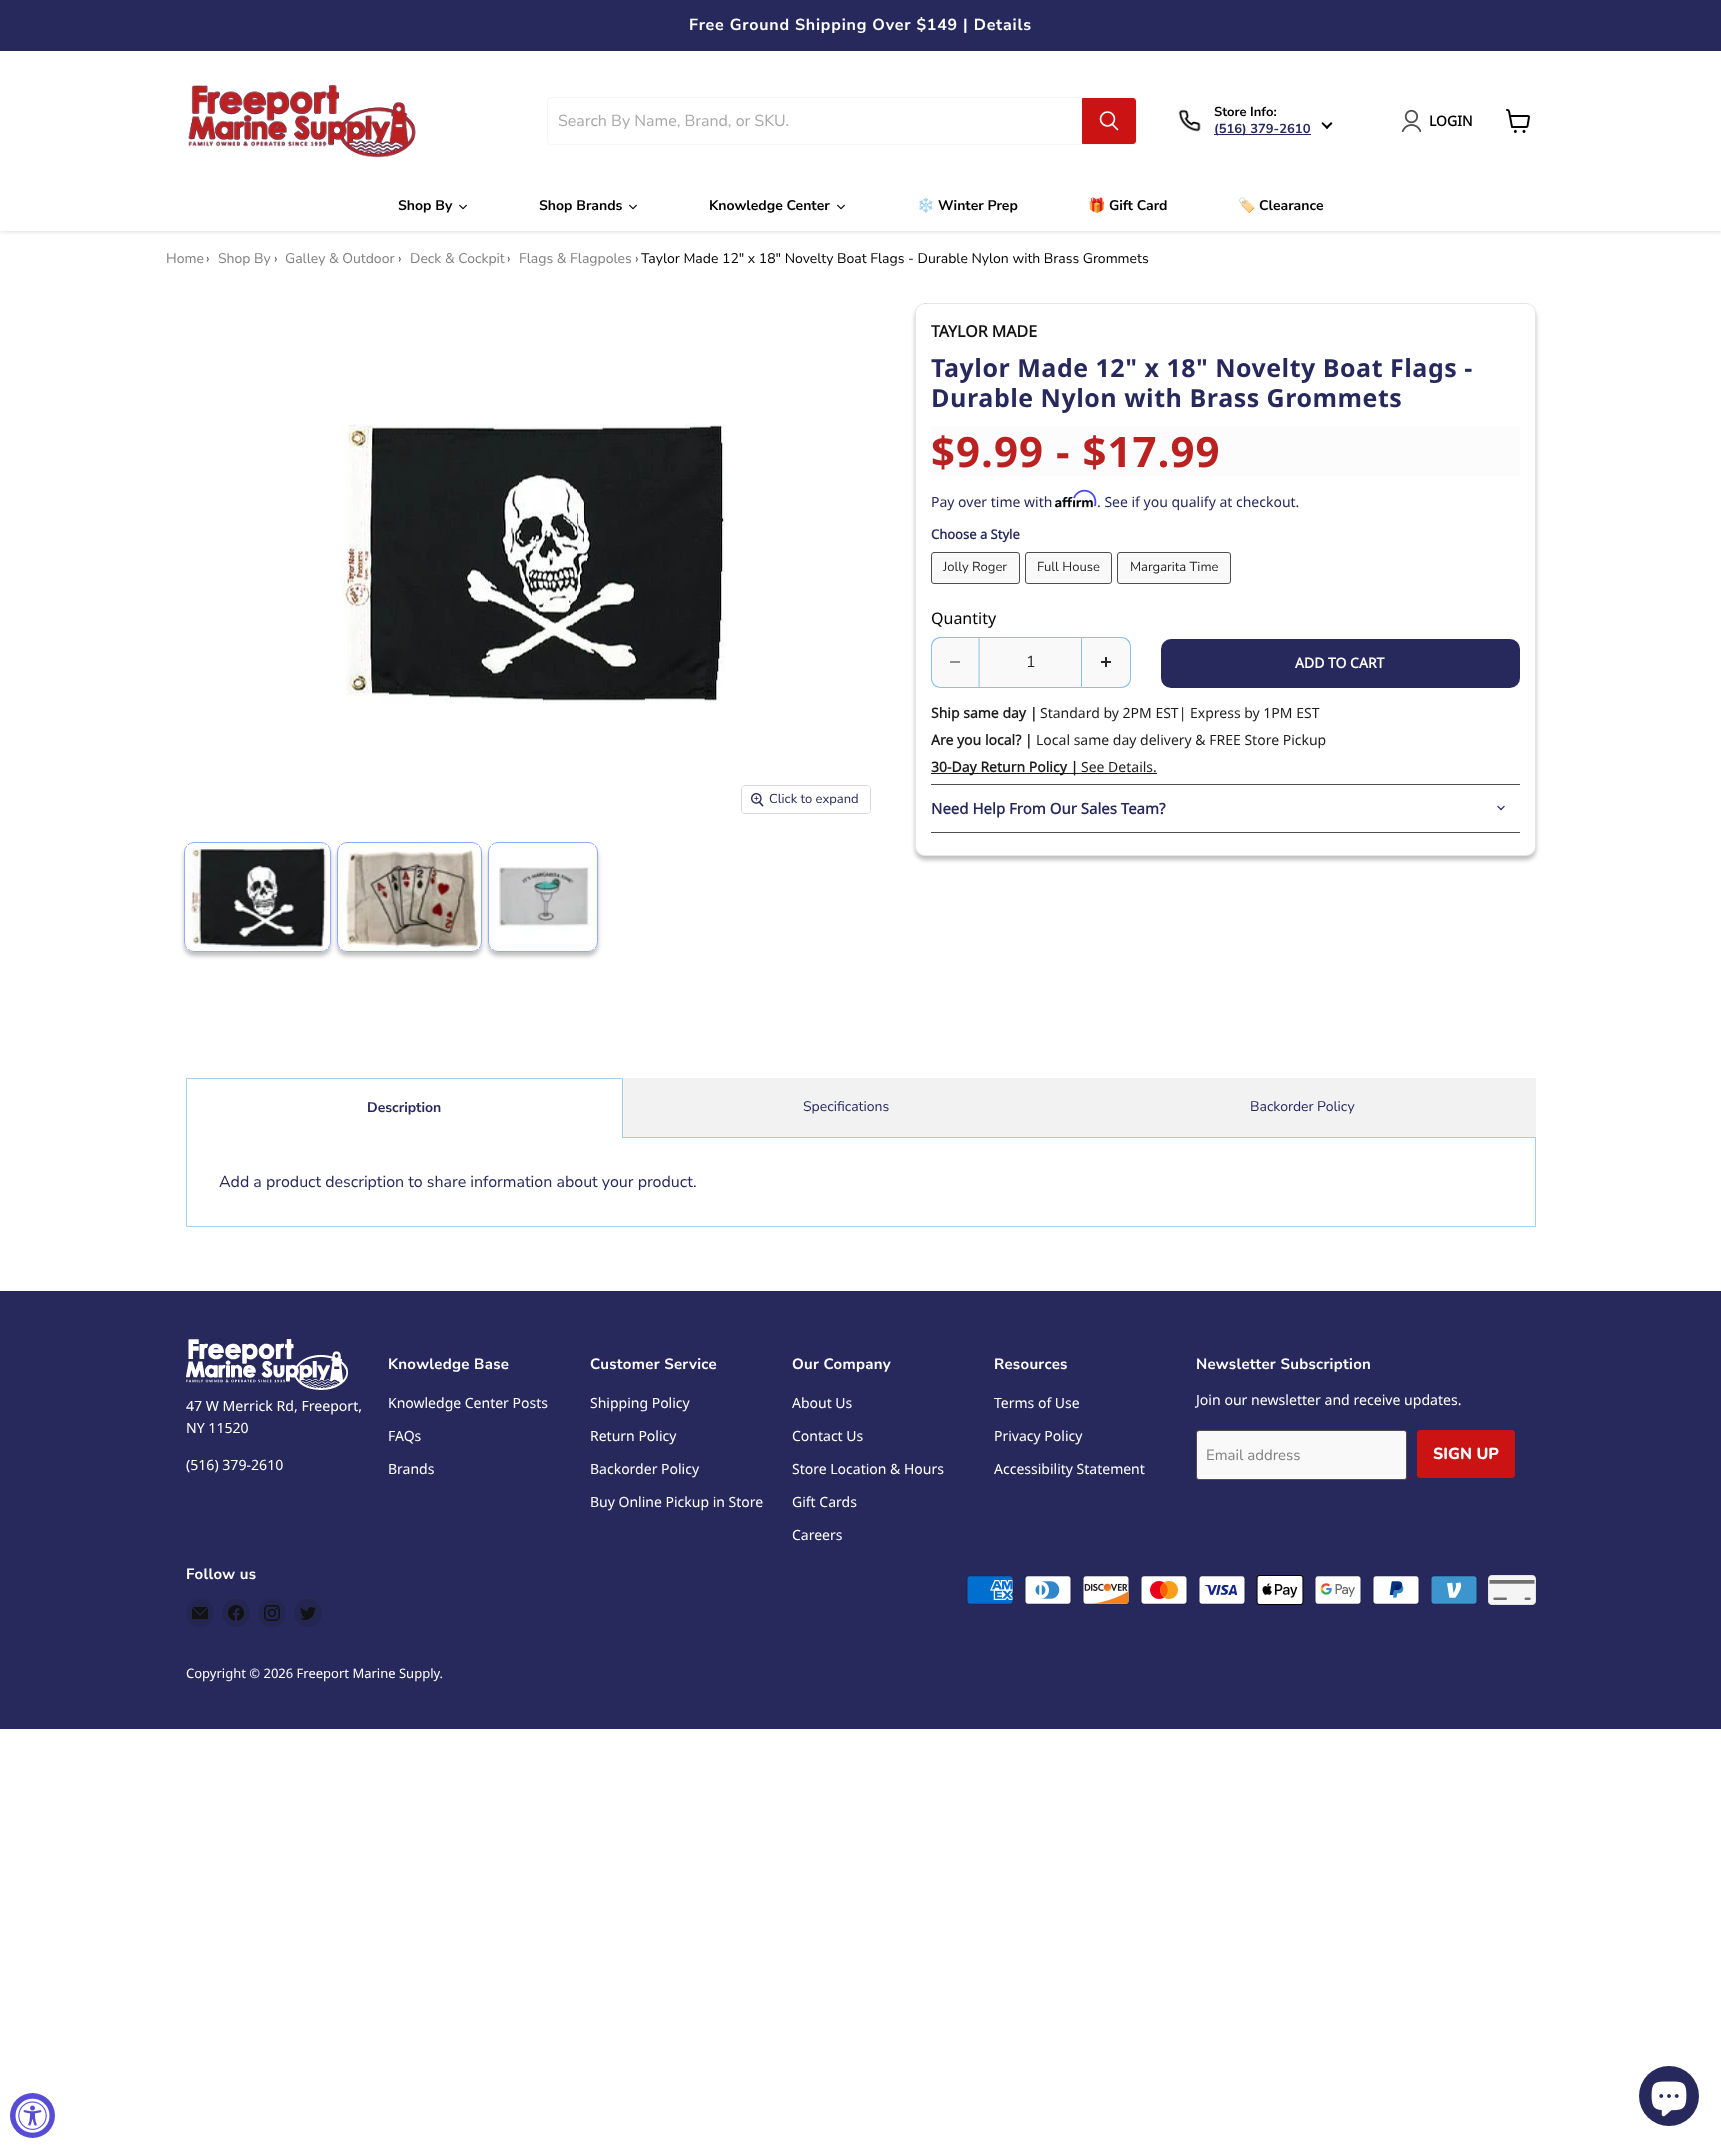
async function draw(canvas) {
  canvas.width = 1721
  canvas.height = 2147
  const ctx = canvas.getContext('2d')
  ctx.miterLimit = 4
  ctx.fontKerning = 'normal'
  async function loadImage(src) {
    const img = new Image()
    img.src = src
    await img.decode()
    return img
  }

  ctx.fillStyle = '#fff'
  ctx.fillRect(0, 0, 1721, 2147)
  ctx.save()
  ctx.beginPath()
  ctx.rect(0, 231, 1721, 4)
  ctx.clip()
  ctx.fillStyle = '#80808040'
  ctx.filter = 'blur(2px)'
  ctx.beginPath()
  ctx.rect(0, 52, 1721, 180)
  ctx.fill()
  ctx.filter = 'none'
  ctx.restore()
  ctx.fillStyle = '#27295d'
  ctx.fillRect(0, 0, 1721, 51)
  ctx.letterSpacing = '0.8px'
  ctx.font = 'bold 16px Nunito Sans'
  ctx.fillStyle = '#fff'
  ctx.fillText('Free Ground Shipping Over $149 | Details', 689, 30)
  ctx.drawImage(await loadImage('image0.png'), 188, 84, 228, 74)
  ctx.beginPath()
  ctx.roundRect(547.5, 97.5, 589, 47, 3.5)
  ctx.strokeStyle = '#f5f5f5'
  ctx.stroke()
  ctx.letterSpacing = '0px'
  ctx.font = '16px Nunito Sans'
  ctx.fillStyle = '#a9a9a9'
  ctx.fillText('Search By Name, Brand, or SKU.', 558, 126)
  ctx.fillStyle = '#cc1313'
  ctx.beginPath()
  ctx.roundRect(1082.5, 98.5, 53, 45, [0, 2.5, 2.5, 0])
  ctx.fill()
  ctx.strokeStyle = '#cc1313'
  ctx.stroke()
  ctx.beginPath()
  ctx.moveTo(1117.5, 129.5)
  ctx.lineTo(1112.5, 124.5)
  ctx.strokeStyle = '#fff'
  ctx.lineWidth = 1.7
  ctx.lineCap = 'round'
  ctx.stroke()
  ctx.beginPath()
  ctx.arc(1107.5, 119, 7, 0, 2 * Math.PI)
  ctx.stroke()
  ctx.drawImage(await loadImage('image1.png'), 1178, 109, 23, 23)
  ctx.font = 'bold 13px Nunito Sans'
  ctx.fillStyle = '#000'
  ctx.fillText('Store Info:', 1214, 116)
  ctx.fillStyle = '#27295d'
  ctx.fillRect(1214, 134, 97, 1)
  ctx.fillText('(516) 379-2610', 1214, 133)
  ctx.fillStyle = '#000'
  ctx.beginPath()
  ctx.moveTo(1325.5, 127.5)
  ctx.lineTo(1331, 122)
  ctx.lineTo(1332.5, 123.5)
  ctx.lineTo(1327, 129)
  ctx.closePath()
  ctx.fill()
  ctx.beginPath()
  ctx.moveTo(1321.5, 123.5)
  ctx.lineTo(1322.5, 122)
  ctx.lineTo(1328.5, 127.5)
  ctx.lineTo(1327, 129)
  ctx.closePath()
  ctx.fill()
  ctx.drawImage(await loadImage('image2.png'), 1401, 109, 20, 24)
  ctx.font = 'bold 14px Noto Sans'
  ctx.fillText('LOGIN', 1429, 126)
  ctx.drawImage(await loadImage('image3.png'), 1506, 109, 24, 24)
  ctx.font = 'bold 14px Nunito Sans'
  ctx.fillText('Shop By', 398, 210)
  ctx.drawImage(await loadImage('image4.png'), 459, 204, 8, 6)
  ctx.fillText('Shop Brands', 539, 210)
  ctx.drawImage(await loadImage('image4.png'), 629, 204, 8, 6)
  ctx.fillText('Knowledge Center', 709, 210)
  ctx.drawImage(await loadImage('image4.png'), 837, 204, 8, 6)
  ctx.font = 'bold 14px Noto Color Emoji'
  ctx.fillText('❄️', 917, 210)
  ctx.font = 'bold 14px Nunito Sans'
  ctx.fillText('Winter Prep', 938, 210)
  ctx.font = 'bold 14px Noto Color Emoji'
  ctx.fillText('🎁', 1088, 210)
  ctx.font = 'bold 14px Nunito Sans'
  ctx.fillText('Gift Card', 1109, 210)
  ctx.font = 'bold 14px Noto Color Emoji'
  ctx.fillText('🏷️', 1238, 210)
  ctx.font = 'bold 14px Nunito Sans'
  ctx.fillText('Clearance', 1259, 210)
  ctx.font = '14px Nunito Sans'
  ctx.fillStyle = '#808080'
  ctx.fillText('Home', 166, 263)
  ctx.fillStyle = '#555'
  ctx.fillText('›', 206, 263)
  ctx.fillStyle = '#808080'
  ctx.fillText('Shop By', 218, 263)
  ctx.fillStyle = '#555'
  ctx.fillText('›', 274, 263)
  ctx.fillStyle = '#808080'
  ctx.fillText('Galley & Outdoor', 285, 263)
  ctx.fillStyle = '#555'
  ctx.fillText('›', 398, 263)
  ctx.fillStyle = '#808080'
  ctx.fillText('Deck & Cockpit', 410, 263)
  ctx.fillStyle = '#555'
  ctx.fillText('›', 507, 263)
  ctx.fillStyle = '#808080'
  ctx.fillText('Flags & Flagpoles', 519, 263)
  ctx.fillStyle = '#555'
  ctx.fillText('›', 635, 263)
  ctx.fillStyle = '#000'
  ctx.fillText('Taylor Made 12" x 18" Novelty Boat Flags - Durable Nylon with Brass Grommets', 641, 263)
  ctx.drawImage(await loadImage('image5.png'), 341, 423, 384, 281)
  ctx.beginPath()
  ctx.roundRect(741.5, 785.5, 129, 28, 3.5)
  ctx.strokeStyle = '#d9d9d9'
  ctx.lineWidth = 1
  ctx.stroke()
  ctx.fillStyle = '#ffffffe6'
  ctx.beginPath()
  ctx.roundRect(742, 786, 128, 27, 3)
  ctx.fill()
  ctx.drawImage(await loadImage('image6.png'), 751, 793, 13, 14)
  ctx.font = '13px Nunito Sans'
  ctx.fillStyle = '#27295d'
  ctx.fillText('Click to expand', 769, 803)
  ctx.save()
  ctx.beginPath()
  ctx.moveTo(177, 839)
  ctx.lineTo(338, 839)
  ctx.lineTo(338, 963)
  ctx.lineTo(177, 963)
  ctx.closePath()
  ctx.moveTo(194, 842)
  ctx.lineTo(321, 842)
  ctx.bezierCurveTo(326.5, 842, 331, 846.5, 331, 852)
  ctx.lineTo(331, 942)
  ctx.bezierCurveTo(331, 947.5, 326.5, 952, 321, 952)
  ctx.lineTo(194, 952)
  ctx.bezierCurveTo(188.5, 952, 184, 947.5, 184, 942)
  ctx.lineTo(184, 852)
  ctx.bezierCurveTo(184, 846.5, 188.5, 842, 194, 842)
  ctx.closePath()
  ctx.clip('evenodd')
  ctx.fillStyle = '#00000040'
  ctx.filter = 'blur(2px)'
  ctx.beginPath()
  ctx.roundRect(184, 846, 147, 110, 10)
  ctx.fill()
  ctx.filter = 'none'
  ctx.restore()
  ctx.beginPath()
  ctx.roundRect(184.5, 842.5, 146, 109, 9.5)
  ctx.strokeStyle = '#92aafe'
  ctx.stroke()
  ctx.drawImage(await loadImage('image7.png'), 187, 845, 141, 104)
  ctx.save()
  ctx.beginPath()
  ctx.moveTo(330, 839)
  ctx.lineTo(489, 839)
  ctx.lineTo(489, 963)
  ctx.lineTo(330, 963)
  ctx.closePath()
  ctx.moveTo(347, 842)
  ctx.lineTo(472, 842)
  ctx.bezierCurveTo(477.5, 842, 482, 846.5, 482, 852)
  ctx.lineTo(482, 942)
  ctx.bezierCurveTo(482, 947.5, 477.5, 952, 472, 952)
  ctx.lineTo(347, 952)
  ctx.bezierCurveTo(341.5, 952, 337, 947.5, 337, 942)
  ctx.lineTo(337, 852)
  ctx.bezierCurveTo(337, 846.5, 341.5, 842, 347, 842)
  ctx.closePath()
  ctx.clip('evenodd')
  ctx.fillStyle = '#00000040'
  ctx.filter = 'blur(2px)'
  ctx.beginPath()
  ctx.roundRect(337, 846, 145, 110, 10)
  ctx.fill()
  ctx.filter = 'none'
  ctx.restore()
  ctx.beginPath()
  ctx.roundRect(337.5, 842.5, 144, 109, 9.5)
  ctx.stroke()
  ctx.drawImage(await loadImage('image8.png'), 340, 845, 139, 104)
  ctx.save()
  ctx.beginPath()
  ctx.moveTo(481, 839)
  ctx.lineTo(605, 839)
  ctx.lineTo(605, 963)
  ctx.lineTo(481, 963)
  ctx.closePath()
  ctx.moveTo(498, 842)
  ctx.lineTo(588, 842)
  ctx.bezierCurveTo(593.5, 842, 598, 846.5, 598, 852)
  ctx.lineTo(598, 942)
  ctx.bezierCurveTo(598, 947.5, 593.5, 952, 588, 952)
  ctx.lineTo(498, 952)
  ctx.bezierCurveTo(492.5, 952, 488, 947.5, 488, 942)
  ctx.lineTo(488, 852)
  ctx.bezierCurveTo(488, 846.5, 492.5, 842, 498, 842)
  ctx.closePath()
  ctx.clip('evenodd')
  ctx.fillStyle = '#00000040'
  ctx.filter = 'blur(2px)'
  ctx.beginPath()
  ctx.roundRect(488, 846, 110, 110, 10)
  ctx.fill()
  ctx.filter = 'none'
  ctx.restore()
  ctx.beginPath()
  ctx.roundRect(488.5, 842.5, 109, 109, 9.5)
  ctx.stroke()
  ctx.drawImage(await loadImage('image9.png'), 491, 845, 104, 104)
  ctx.save()
  ctx.beginPath()
  ctx.moveTo(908, 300)
  ctx.lineTo(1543, 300)
  ctx.lineTo(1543, 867)
  ctx.lineTo(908, 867)
  ctx.closePath()
  ctx.moveTo(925, 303)
  ctx.lineTo(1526, 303)
  ctx.bezierCurveTo(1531.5, 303, 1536, 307.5, 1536, 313)
  ctx.lineTo(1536, 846)
  ctx.bezierCurveTo(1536, 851.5, 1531.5, 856, 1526, 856)
  ctx.lineTo(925, 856)
  ctx.bezierCurveTo(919.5, 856, 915, 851.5, 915, 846)
  ctx.lineTo(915, 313)
  ctx.bezierCurveTo(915, 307.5, 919.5, 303, 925, 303)
  ctx.closePath()
  ctx.clip('evenodd')
  ctx.fillStyle = '#00000040'
  ctx.filter = 'blur(2px)'
  ctx.beginPath()
  ctx.roundRect(915, 307, 621, 553, 10)
  ctx.fill()
  ctx.filter = 'none'
  ctx.restore()
  ctx.beginPath()
  ctx.roundRect(915.5, 303.5, 620, 552, 9.5)
  ctx.strokeStyle = '#0000001a'
  ctx.stroke()
  ctx.font = 'bold 16px Noto Sans'
  ctx.fillStyle = '#121212'
  ctx.fillText('TAYLOR MADE', 931, 337)
  ctx.letterSpacing = '0.5px'
  ctx.font = 'bold 25px "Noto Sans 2"'
  ctx.fillStyle = '#27295d'
  ctx.fillText('Taylor Made 12" x 18" Novelty Boat Flags -', 931, 377)
  ctx.fillText('Durable Nylon with Brass Grommets', 931, 407)
  ctx.fillStyle = '#fcfcfc'
  ctx.fillRect(931, 427, 589, 49)
  ctx.letterSpacing = '1px'
  ctx.font = 'bold 42px "Noto Sans 2"'
  ctx.fillStyle = '#bb2121'
  ctx.fillText('$9.99 - $17.99', 931, 467)
  ctx.letterSpacing = '0px'
  ctx.font = '14px Noto Sans'
  ctx.fillStyle = '#27295d'
  ctx.fillText('Pay over time with', 931, 507)
  ctx.drawImage(await loadImage('image11.png'), 1055, 496, 38, 12)
  ctx.drawImage(await loadImage('image10.png'), 1073, 489, 24, 18)
  ctx.fillText('. See if you qualify at checkout.', 1097, 507)
  ctx.font = 'bold 13px Noto Sans'
  ctx.fillText('Choose a Style', 931, 539)
  ctx.fillStyle = '#f9f9f9'
  ctx.beginPath()
  ctx.roundRect(931.5, 552.5, 88, 31, 2.5)
  ctx.fill()
  ctx.strokeStyle = '#4e4e4e'
  ctx.stroke()
  ctx.font = '13px Nunito Sans'
  ctx.fillStyle = '#292929'
  ctx.fillText('Jolly Roger', 943, 571)
  ctx.fillStyle = '#f9f9f9'
  ctx.beginPath()
  ctx.roundRect(1025.5, 552.5, 86, 31, 2.5)
  ctx.fill()
  ctx.stroke()
  ctx.fillStyle = '#292929'
  ctx.fillText('Full House', 1037, 571)
  ctx.fillStyle = '#f9f9f9'
  ctx.beginPath()
  ctx.roundRect(1117.5, 552.5, 113, 31, 2.5)
  ctx.fill()
  ctx.stroke()
  ctx.fillStyle = '#292929'
  ctx.fillText('Margarita Time', 1130, 571)
  ctx.font = '16px Noto Sans'
  ctx.fillStyle = '#000'
  ctx.fillText('Quantity', 931, 624)
  ctx.fillStyle = '#f9f9f9'
  ctx.beginPath()
  ctx.roundRect(931, 637, 48, 51, [10, 0, 0, 10])
  ctx.fill()
  ctx.fillStyle = '#88c0e3'
  ctx.beginPath()
  ctx.moveTo(941, 637)
  ctx.lineTo(979, 637)
  ctx.lineTo(979, 688)
  ctx.lineTo(941, 688)
  ctx.bezierCurveTo(935, 688, 931, 684, 931, 678)
  ctx.lineTo(931, 647)
  ctx.bezierCurveTo(931, 641, 935, 637, 941, 637)
  ctx.closePath()
  ctx.moveTo(941, 638)
  ctx.lineTo(979, 638)
  ctx.lineTo(979, 687)
  ctx.lineTo(941, 687)
  ctx.bezierCurveTo(936, 687, 932, 683, 932, 678)
  ctx.lineTo(932, 647)
  ctx.bezierCurveTo(932, 642, 936, 638, 941, 638)
  ctx.closePath()
  ctx.fill('evenodd')
  ctx.fillStyle = '#919191'
  ctx.fillRect(950, 661, 10, 2)
  ctx.fillStyle = '#f9f9f9'
  ctx.beginPath()
  ctx.rect(979.5, 637.5, 102, 50)
  ctx.fill()
  ctx.strokeStyle = '#88c0e3'
  ctx.stroke()
  ctx.font = '16px Nunito Sans'
  ctx.fillStyle = '#292929'
  ctx.fillText('1', 1026, 667)
  ctx.fillStyle = '#f9f9f9'
  ctx.beginPath()
  ctx.roundRect(1082, 637, 49, 51, [0, 10, 10, 0])
  ctx.fill()
  ctx.fillStyle = '#88c0e3'
  ctx.beginPath()
  ctx.moveTo(1082, 637)
  ctx.lineTo(1121, 637)
  ctx.bezierCurveTo(1127, 637, 1131, 641, 1131, 647)
  ctx.lineTo(1131, 678)
  ctx.bezierCurveTo(1131, 684, 1127, 688, 1121, 688)
  ctx.lineTo(1082, 688)
  ctx.closePath()
  ctx.moveTo(1082, 638)
  ctx.lineTo(1121, 638)
  ctx.bezierCurveTo(1126, 638, 1130, 642, 1130, 647)
  ctx.lineTo(1130, 678)
  ctx.bezierCurveTo(1130, 683, 1126, 687, 1121, 687)
  ctx.lineTo(1082, 687)
  ctx.closePath()
  ctx.fill('evenodd')
  ctx.drawImage(await loadImage('image12.png'), 1101, 657, 10, 10)
  ctx.fillStyle = '#27295d'
  ctx.beginPath()
  ctx.roundRect(1161, 639, 359, 49, 10)
  ctx.fill()
  ctx.font = 'bold 14px Noto Sans'
  ctx.fillStyle = '#fff'
  ctx.fillText('ADD TO CART', 1295, 668)
  ctx.fillStyle = '#1d1d1d'
  ctx.fillText('Ship same day |', 931, 718)
  ctx.font = '14px Noto Sans'
  ctx.fillText('Standard by 2PM EST| Express by 1PM EST', 1040, 718)
  ctx.font = 'bold 14px Noto Sans'
  ctx.fillText('Are you local? |', 931, 745)
  ctx.font = '14px Noto Sans'
  ctx.fillText('Local same day delivery & FREE Store Pickup', 1036, 745)
  ctx.fillRect(931, 773, 226, 1)
  ctx.font = 'bold 14px Noto Sans'
  ctx.fillText('30-Day Return Policy |', 931, 772)
  ctx.font = '14px Noto Sans'
  ctx.fillText('See Details.', 1081, 772)
  ctx.fillStyle = '#4e4e4e'
  ctx.fillRect(931, 784, 589, 1)
  ctx.fillRect(931, 832, 589, 1)
  ctx.font = 'bold 15px Noto Sans'
  ctx.fillStyle = '#27295d'
  ctx.fillText('Need Help From Our Sales Team?', 931, 814)
  ctx.drawImage(await loadImage('image13.png'), 1497, 805, 8, 6)
  ctx.fillStyle = '#a6d0ea'
  ctx.beginPath()
  ctx.moveTo(186, 1078)
  ctx.lineTo(623, 1078)
  ctx.lineTo(622, 1079)
  ctx.lineTo(187, 1079)
  ctx.closePath()
  ctx.fill()
  ctx.fillStyle = '#88c0e3bf'
  ctx.beginPath()
  ctx.moveTo(623, 1078)
  ctx.lineTo(623, 1138)
  ctx.lineTo(622, 1138)
  ctx.lineTo(622, 1079)
  ctx.closePath()
  ctx.fill()
  ctx.beginPath()
  ctx.moveTo(186, 1138)
  ctx.lineTo(186, 1078)
  ctx.lineTo(187, 1079)
  ctx.lineTo(187, 1138)
  ctx.closePath()
  ctx.fill()
  ctx.font = 'bold 14px Nunito Sans'
  ctx.fillStyle = '#27295d'
  ctx.fillText('Description', 367, 1112)
  ctx.fillStyle = '#f2f2f2'
  ctx.fillRect(623, 1078, 913, 59)
  ctx.fillStyle = '#a3cde7'
  ctx.fillRect(623, 1137, 913, 1)
  ctx.font = '14px Nunito Sans'
  ctx.fillStyle = '#27295d'
  ctx.fillText('Specifications', 803, 1111)
  ctx.fillText('Backorder Policy', 1250, 1111)
  ctx.fillStyle = '#a6d0ea'
  ctx.beginPath()
  ctx.moveTo(1536, 1138)
  ctx.lineTo(1536, 1227)
  ctx.lineTo(1535, 1226)
  ctx.lineTo(1535, 1138)
  ctx.closePath()
  ctx.fill()
  ctx.fillStyle = '#88c0e3bf'
  ctx.beginPath()
  ctx.moveTo(1536, 1227)
  ctx.lineTo(186, 1227)
  ctx.lineTo(187, 1226)
  ctx.lineTo(1535, 1226)
  ctx.closePath()
  ctx.fill()
  ctx.beginPath()
  ctx.moveTo(186, 1227)
  ctx.lineTo(186, 1138)
  ctx.lineTo(187, 1138)
  ctx.lineTo(187, 1226)
  ctx.closePath()
  ctx.fill()
  ctx.font = '16px Nunito Sans'
  ctx.fillStyle = '#27295d'
  ctx.fillText('Add a product description to share information about your product.', 219, 1187)
  ctx.fillRect(0, 1291, 1721, 438)
  ctx.drawImage(await loadImage('image14.png'), 186, 1339, 162, 51)
  ctx.font = '14.1px Noto Sans'
  ctx.fillStyle = '#fff'
  ctx.fillText('47 W Merrick Rd, Freeport,', 186, 1411)
  ctx.fillText('NY 11520', 186, 1433)
  ctx.fillText('(516) 379-2610', 186, 1470)
  ctx.letterSpacing = '0.3px'
  ctx.font = 'bold 15px Nunito Sans'
  ctx.fillText('Knowledge Base', 388, 1369)
  ctx.letterSpacing = '0px'
  ctx.font = '14px Noto Sans'
  ctx.fillText('Knowledge Center Posts', 388, 1408)
  ctx.fillText('FAQs', 388, 1441)
  ctx.fillText('Brands', 388, 1474)
  ctx.letterSpacing = '0.3px'
  ctx.font = 'bold 15px Nunito Sans'
  ctx.fillText('Customer Service', 590, 1369)
  ctx.letterSpacing = '0px'
  ctx.font = '14px Noto Sans'
  ctx.fillText('Shipping Policy', 590, 1408)
  ctx.fillText('Return Policy', 590, 1441)
  ctx.fillText('Backorder Policy', 590, 1474)
  ctx.fillText('Buy Online Pickup in Store', 590, 1507)
  ctx.letterSpacing = '0.3px'
  ctx.font = 'bold 15px Nunito Sans'
  ctx.fillText('Our Company', 792, 1369)
  ctx.letterSpacing = '0px'
  ctx.font = '14px Noto Sans'
  ctx.fillText('About Us', 792, 1408)
  ctx.fillText('Contact Us', 792, 1441)
  ctx.fillText('Store Location & Hours', 792, 1474)
  ctx.fillText('Gift Cards', 792, 1507)
  ctx.fillText('Careers', 792, 1540)
  ctx.letterSpacing = '0.3px'
  ctx.font = 'bold 15px Nunito Sans'
  ctx.fillText('Resources', 994, 1369)
  ctx.letterSpacing = '0px'
  ctx.font = '14px Noto Sans'
  ctx.fillText('Terms of Use', 994, 1408)
  ctx.fillText('Privacy Policy', 994, 1441)
  ctx.fillText('Accessibility Statement', 994, 1474)
  ctx.letterSpacing = '0.3px'
  ctx.font = 'bold 15px Nunito Sans'
  ctx.fillText('Newsletter Subscription', 1196, 1369)
  ctx.letterSpacing = '0px'
  ctx.font = '14.1px Noto Sans'
  ctx.fillText('Join our newsletter and receive updates.', 1196, 1405)
  ctx.fillStyle = '#f9f9f9'
  ctx.beginPath()
  ctx.roundRect(1196.5, 1430.5, 210, 49, 2.5)
  ctx.fill()
  ctx.strokeStyle = '#4e4e4e'
  ctx.stroke()
  ctx.font = '15px Nunito Sans'
  ctx.fillStyle = '#808080'
  ctx.fillText('Email address', 1206, 1460)
  ctx.fillStyle = '#cc1313'
  ctx.beginPath()
  ctx.roundRect(1417.5, 1430.5, 97, 47, 2.5)
  ctx.fill()
  ctx.strokeStyle = '#cc1313'
  ctx.stroke()
  ctx.font = '800 16px Nunito'
  ctx.fillStyle = '#fff'
  ctx.fillText('SIGN UP', 1433, 1459)
  ctx.letterSpacing = '0.3px'
  ctx.font = 'bold 15px Nunito Sans'
  ctx.fillText('Follow us', 186, 1579)
  ctx.fillStyle = '#242652'
  ctx.beginPath()
  ctx.arc(200, 1613, 14, 0, 2 * Math.PI)
  ctx.fill()
  ctx.drawImage(await loadImage('image15.png'), 192, 1607, 16, 13)
  ctx.beginPath()
  ctx.arc(236, 1613, 14, 0, 2 * Math.PI)
  ctx.fill()
  ctx.drawImage(await loadImage('image16.png'), 228, 1605, 16, 16)
  ctx.beginPath()
  ctx.arc(272, 1613, 14, 0, 2 * Math.PI)
  ctx.fill()
  ctx.drawImage(await loadImage('image17.png'), 264, 1605, 16, 16)
  ctx.beginPath()
  ctx.arc(308, 1613, 14, 0, 2 * Math.PI)
  ctx.fill()
  ctx.drawImage(await loadImage('image18.png'), 300, 1607, 16, 13)
  ctx.drawImage(await loadImage('image19.png'), 966, 1575, 48, 30)
  ctx.drawImage(await loadImage('image20.png'), 1024, 1575, 48, 30)
  ctx.drawImage(await loadImage('image21.png'), 1082, 1575, 48, 30)
  ctx.drawImage(await loadImage('image22.png'), 1140, 1575, 48, 30)
  ctx.drawImage(await loadImage('image23.png'), 1198, 1575, 48, 30)
  ctx.drawImage(await loadImage('image24.png'), 1256, 1575, 48, 30)
  ctx.drawImage(await loadImage('image25.png'), 1314, 1575, 48, 30)
  ctx.drawImage(await loadImage('image26.png'), 1372, 1575, 48, 30)
  ctx.drawImage(await loadImage('image27.png'), 1430, 1575, 48, 30)
  ctx.drawImage(await loadImage('image28.png'), 1488, 1575, 48, 30)
  ctx.letterSpacing = '0px'
  ctx.font = '13px Noto Sans'
  ctx.fillStyle = '#fff'
  ctx.fillText('Copyright © 2026 Freeport Marine Supply.', 186, 1678)
  ctx.fillStyle = '#574cd5'
  ctx.beginPath()
  ctx.arc(32.5, 2115.5, 22.5, 0, 2 * Math.PI)
  ctx.fill()
  ctx.drawImage(await loadImage('image29.png'), 15, 2098, 35, 35)
  ctx.fillStyle = '#27295d'
  ctx.beginPath()
  ctx.arc(1669, 2096, 30, 0, 2 * Math.PI)
  ctx.fill()
  ctx.drawImage(await loadImage('image30.png'), 1651, 2081, 36, 36)
}

draw(document.querySelector('canvas'))
